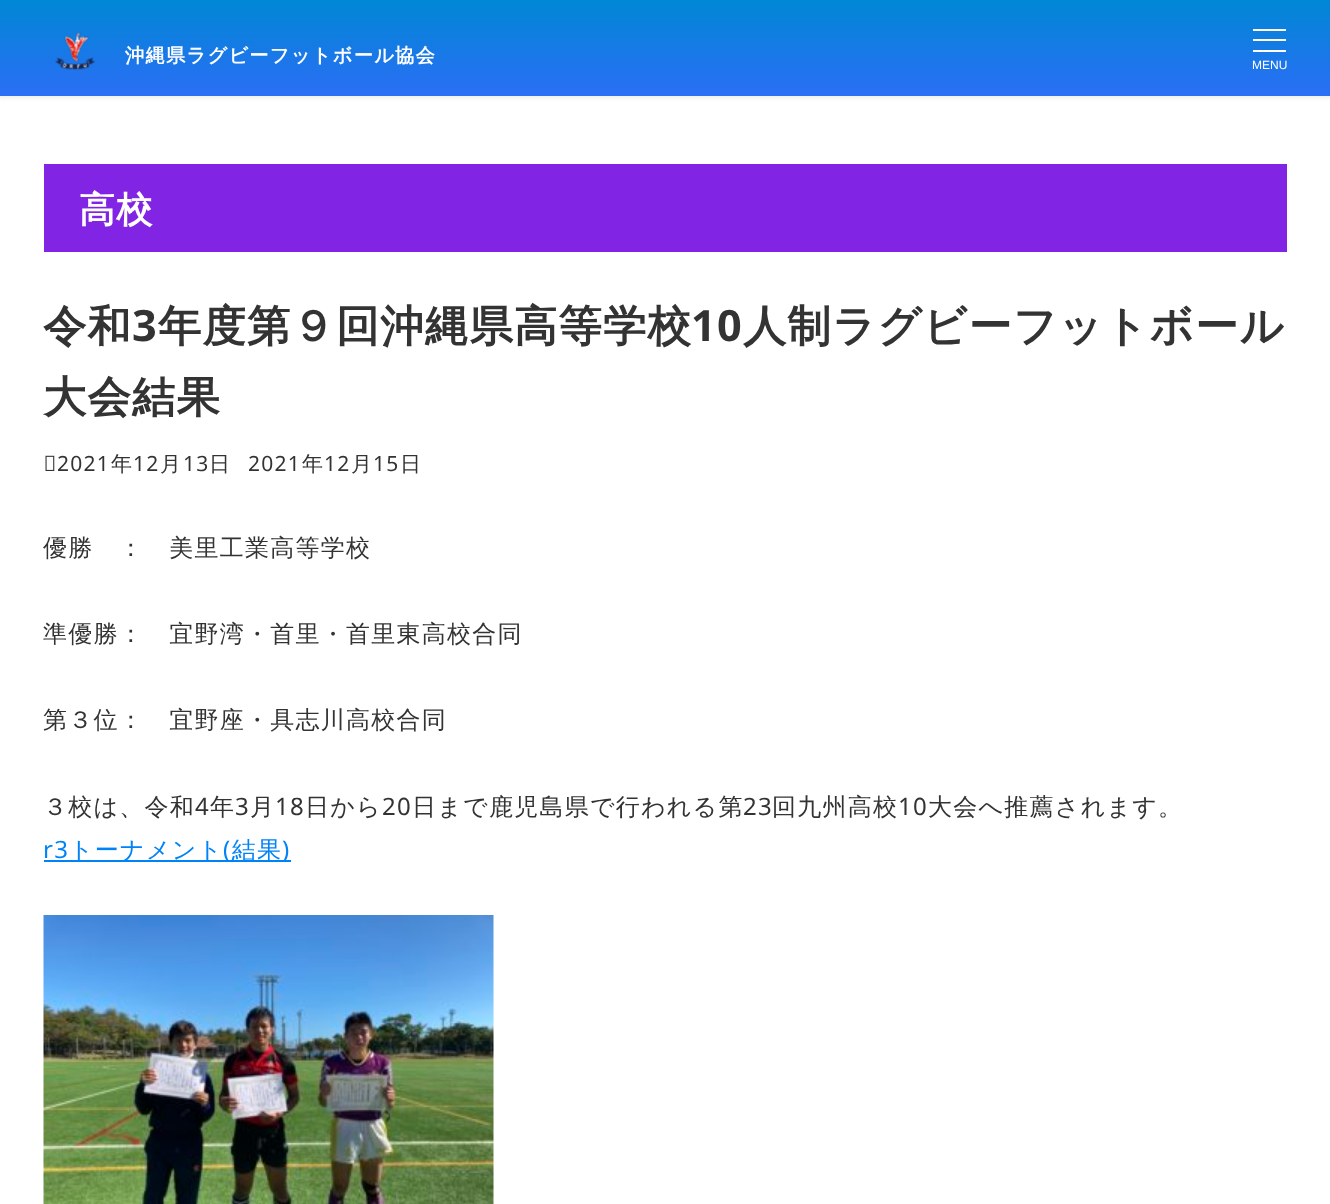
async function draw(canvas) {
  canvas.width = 1330
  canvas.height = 1204
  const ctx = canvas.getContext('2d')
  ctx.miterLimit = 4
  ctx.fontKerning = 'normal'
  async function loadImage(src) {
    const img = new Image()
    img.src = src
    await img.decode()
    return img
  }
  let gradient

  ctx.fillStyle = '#fff'
  ctx.fillRect(0, 0, 1330, 1204)
  ctx.fillStyle = '#0000000d'
  ctx.filter = 'blur(1.5px)'
  ctx.beginPath()
  ctx.rect(-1, 0, 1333, 99)
  ctx.fill()
  ctx.filter = 'none'
  gradient = ctx.createLinearGradient(665, 0, 665, 96)
  gradient.addColorStop(0, '#0087d4')
  gradient.addColorStop(1, '#2b6ef6')
  ctx.fillStyle = gradient
  ctx.fillRect(0, 0, 1330, 96)
  ctx.drawImage(await loadImage('image0.png'), 55, 32, 40, 38)
  ctx.letterSpacing = '1.25px'
  ctx.font = 'bold 19.25px WenQuanYi Zen Hei'
  ctx.fillStyle = '#fff'
  ctx.fillText('沖縄県ラグビーフットボール協会', 125, 62)
  ctx.fillRect(1253, 29, 33, 2)
  ctx.fillRect(1253, 39, 33, 2)
  ctx.fillRect(1253, 50, 33, 2)
  ctx.letterSpacing = '0px'
  ctx.font = '12px Liberation Sans'
  ctx.fillText('MENU', 1252, 69)
  ctx.fillStyle = '#8224e3'
  ctx.fillRect(44, 164, 1243, 88)
  ctx.letterSpacing = '1.25px'
  ctx.font = 'bold 36px WenQuanYi Zen Hei'
  ctx.fillStyle = '#fff'
  ctx.fillText('高校', 79, 222)
  ctx.font = 'bold 43.25px WenQuanYi Zen Hei'
  ctx.fillStyle = '#333'
  ctx.fillText('令和', 43, 341)
  ctx.font = 'bold 43.25px Noto Sans'
  ctx.fillText('3', 132, 341)
  ctx.font = 'bold 43.25px WenQuanYi Zen Hei'
  ctx.fillText('年度第９回沖縄県高等学校', 158, 341)
  ctx.font = 'bold 43.25px Noto Sans'
  ctx.fillText('10', 691, 341)
  ctx.font = 'bold 43.25px WenQuanYi Zen Hei'
  ctx.fillText('人制ラグビーフットボール', 743, 341)
  ctx.fillText('大会結果', 43, 412)
  ctx.drawImage(await loadImage('image1.png'), 45, 455, 10, 16)
  ctx.font = '21px Noto Sans'
  ctx.fillText('2021', 57, 471)
  ctx.font = '500 21px WenQuanYi Zen Hei'
  ctx.fillText('年', 111, 471)
  ctx.font = '21px Noto Sans'
  ctx.fillText('12', 133, 471)
  ctx.font = '500 21px WenQuanYi Zen Hei'
  ctx.fillText('月', 160, 471)
  ctx.font = '21px Noto Sans'
  ctx.fillText('13', 183, 471)
  ctx.font = '500 21px WenQuanYi Zen Hei'
  ctx.fillText('日', 209, 471)
  ctx.font = '21px Noto Sans'
  ctx.fillText('2021', 248, 471)
  ctx.font = '500 21px WenQuanYi Zen Hei'
  ctx.fillText('年', 302, 471)
  ctx.font = '21px Noto Sans'
  ctx.fillText('12', 324, 471)
  ctx.font = '500 21px WenQuanYi Zen Hei'
  ctx.fillText('月', 351, 471)
  ctx.font = '21px Noto Sans'
  ctx.fillText('15', 373, 471)
  ctx.font = '500 21px WenQuanYi Zen Hei'
  ctx.fillText('日', 400, 471)
  ctx.font = '500 24px WenQuanYi Zen Hei'
  ctx.fillText('優勝　：　美里工業高等学校', 43, 556)
  ctx.fillText('準優勝：　宜野湾・首里・首里東高校合同', 43, 642)
  ctx.fillText('第３位：　宜野座・具志川高校合同', 43, 728)
  ctx.fillText('３校は、令和', 43, 815)
  ctx.font = '24px Noto Sans'
  ctx.fillText('4', 195, 815)
  ctx.font = '500 24px WenQuanYi Zen Hei'
  ctx.fillText('年', 210, 815)
  ctx.font = '24px Noto Sans'
  ctx.fillText('3', 235, 815)
  ctx.font = '500 24px WenQuanYi Zen Hei'
  ctx.fillText('月', 250, 815)
  ctx.font = '24px Noto Sans'
  ctx.fillText('18', 275, 815)
  ctx.font = '500 24px WenQuanYi Zen Hei'
  ctx.fillText('日から', 305, 815)
  ctx.font = '24px Noto Sans'
  ctx.fillText('20', 382, 815)
  ctx.font = '500 24px WenQuanYi Zen Hei'
  ctx.fillText('日まで鹿児島県で行われる第', 412, 815)
  ctx.font = '24px Noto Sans'
  ctx.fillText('23', 743, 815)
  ctx.font = '500 24px WenQuanYi Zen Hei'
  ctx.fillText('回九州高校', 772, 815)
  ctx.font = '24px Noto Sans'
  ctx.fillText('10', 898, 815)
  ctx.font = '500 24px WenQuanYi Zen Hei'
  ctx.fillText('大会へ推薦されます。', 928, 815)
  ctx.font = '24px Noto Sans'
  ctx.fillStyle = '#0083f7'
  ctx.fillText('r3', 43, 858)
  ctx.fillRect(44, 860, 247, 2)
  ctx.font = '500 24px WenQuanYi Zen Hei'
  ctx.fillText('トーナメント 結果', 69, 858)
  ctx.font = '24px Noto Sans'
  ctx.fillText('(', 223, 858)
  ctx.fillText(')', 282, 858)
  ctx.drawImage(await loadImage('image2.png'), 43, 915, 451, 289)
}

draw(document.querySelector('canvas'))
